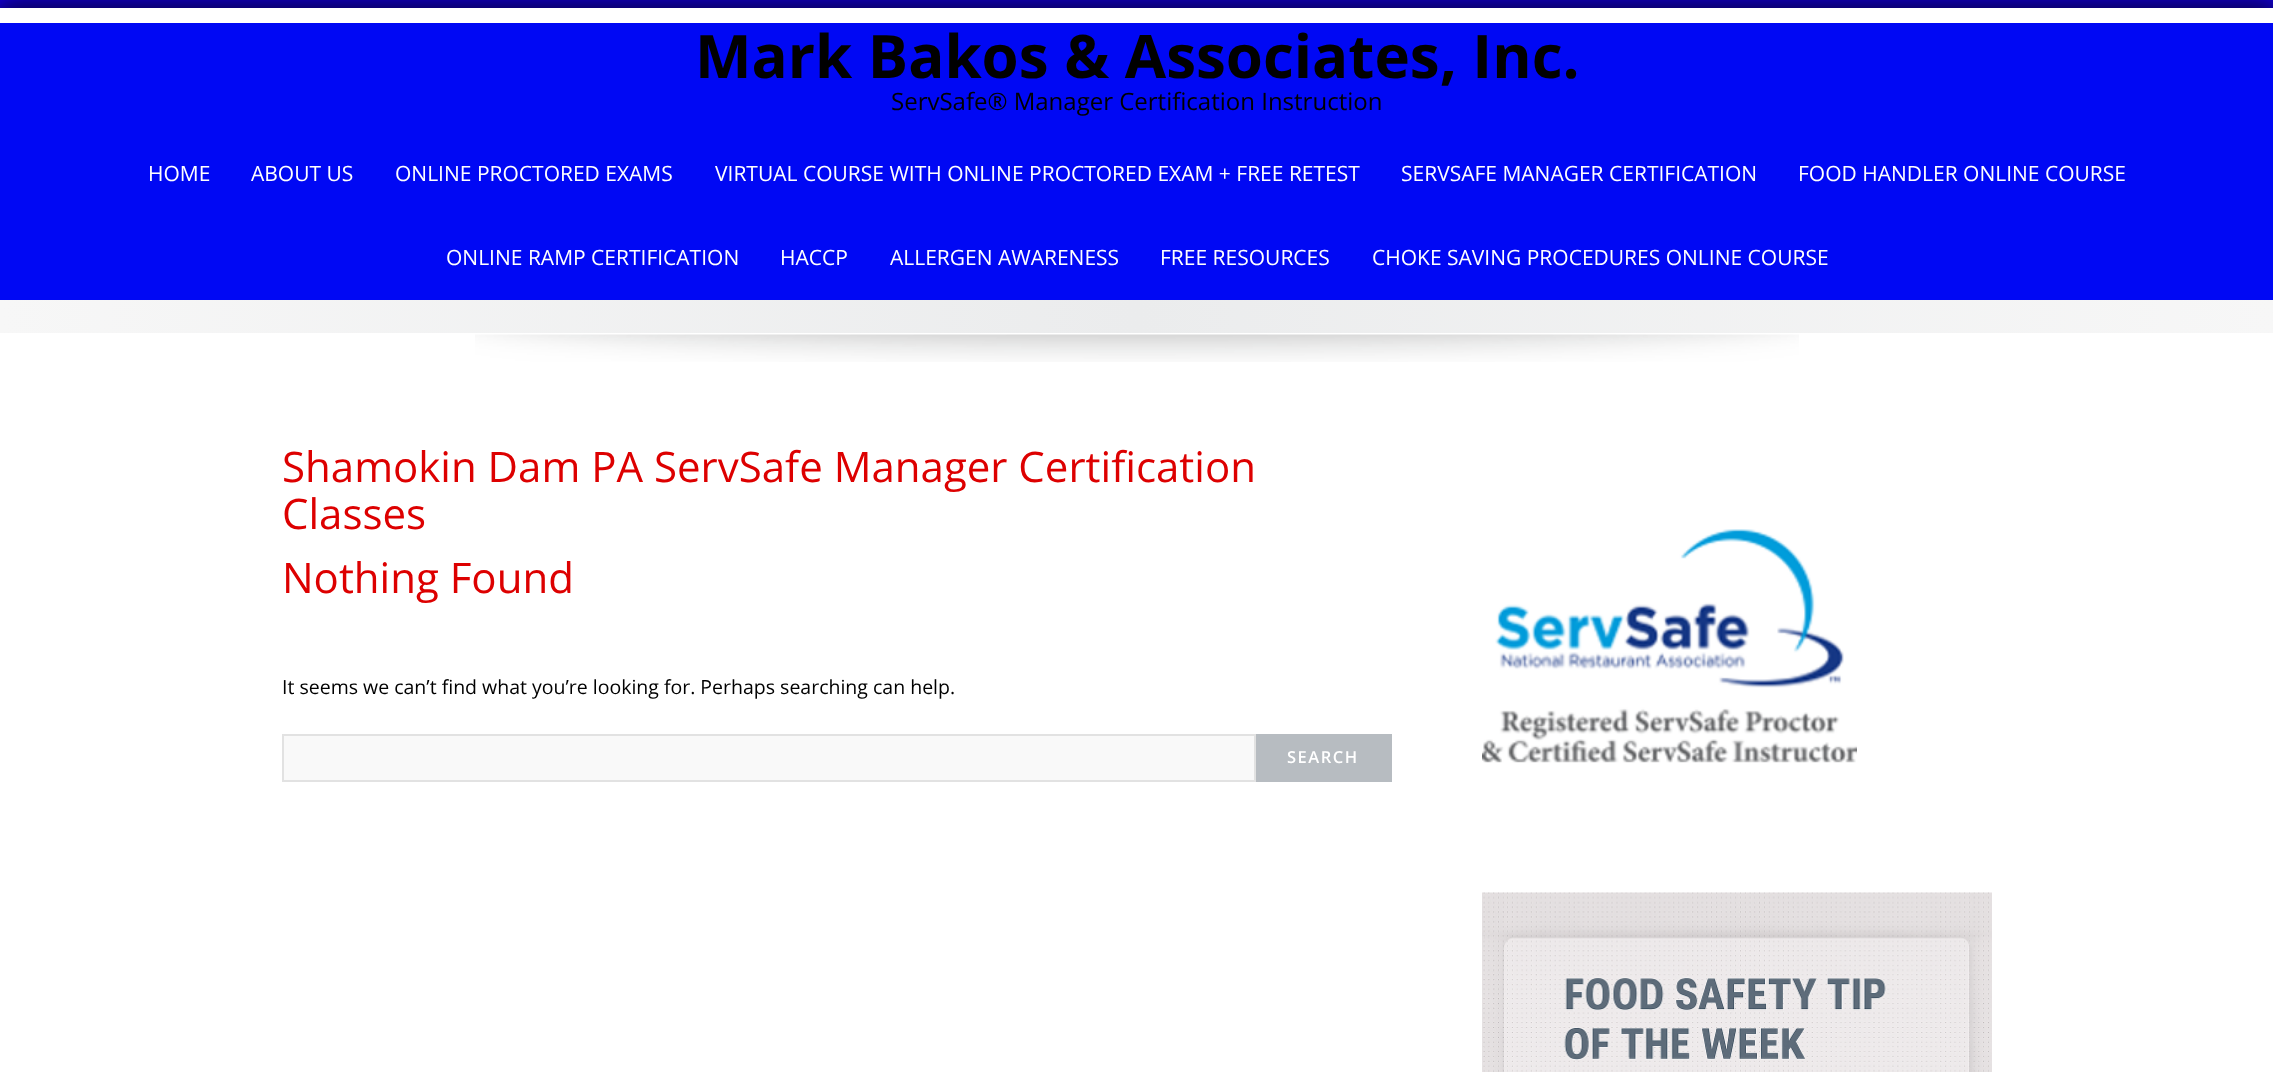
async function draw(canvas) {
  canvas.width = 2273
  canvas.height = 1072
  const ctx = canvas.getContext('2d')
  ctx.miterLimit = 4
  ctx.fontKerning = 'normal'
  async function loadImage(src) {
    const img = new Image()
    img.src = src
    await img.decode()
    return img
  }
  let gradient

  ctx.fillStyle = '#1800f9'
  ctx.fillRect(0, 0, 2273, 1072)
  ctx.fillStyle = '#000000bf'
  ctx.filter = 'blur(15px)'
  ctx.beginPath()
  ctx.rect(-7, 0, 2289, 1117)
  ctx.fill()
  ctx.filter = 'none'
  ctx.fillStyle = '#fff'
  ctx.fillRect(0, 8, 2273, 1064)
  ctx.fillStyle = '#0008f4'
  ctx.fillRect(0, 23, 2273, 277)
  ctx.font = 'bold 60px Open Sans'
  ctx.fillStyle = '#000'
  ctx.fillText('Mark Bakos & Associates, Inc.', 695, 78)
  ctx.font = '24px Open Sans'
  ctx.fillText('ServSafe® Manager Certification Instruction', 891, 110)
  ctx.font = '21px Open Sans'
  ctx.fillStyle = '#fff'
  ctx.fillText('HOME', 148, 181)
  ctx.fillText('ABOUT US', 251, 181)
  ctx.fillText('ONLINE PROCTORED EXAMS', 395, 181)
  ctx.fillText('VIRTUAL COURSE WITH ONLINE PROCTORED EXAM + FREE RETEST', 715, 181)
  ctx.fillText('SERVSAFE MANAGER CERTIFICATION', 1401, 181)
  ctx.fillText('FOOD HANDLER ONLINE COURSE', 1798, 181)
  ctx.fillText('ONLINE RAMP CERTIFICATION', 446, 265)
  ctx.fillText('HACCP', 780, 265)
  ctx.fillText('ALLERGEN AWARENESS', 890, 265)
  ctx.fillText('FREE RESOURCES', 1160, 265)
  ctx.fillText('CHOKE SAVING PROCEDURES ONLINE COURSE', 1372, 265)
  gradient = ctx.createLinearGradient(0, 317, 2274, 316)
  gradient.addColorStop(0, '#f7f7f7')
  gradient.addColorStop(0.5, '#ebeced')
  gradient.addColorStop(1, '#f7f7f7')
  ctx.fillStyle = gradient
  ctx.fillRect(0, 300, 2273, 33)
  ctx.drawImage(await loadImage('image0.png'), 475, 334, 1324, 28)
  ctx.font = '42px Open Sans'
  ctx.fillStyle = '#d00'
  ctx.fillText('Shamokin Dam PA ServSafe Manager Certification', 282, 482)
  ctx.fillText('Classes', 282, 529)
  ctx.fillText('Nothing Found', 282, 593)
  ctx.font = '19.5px Open Sans'
  ctx.fillStyle = '#000'
  ctx.fillText('It seems we can’t find what you’re looking for. Perhaps searching can help.', 282, 694)
  ctx.fillStyle = '#f9f9f9'
  ctx.beginPath()
  ctx.rect(283, 735, 972, 46)
  ctx.fill()
  ctx.strokeStyle = '#e2e2e2'
  ctx.lineWidth = 2
  ctx.stroke()
  ctx.fillStyle = '#b7bcc1'
  ctx.fillRect(1256, 734, 136, 48)
  ctx.letterSpacing = '1.5px'
  ctx.font = '600 16.5px Open Sans'
  ctx.fillStyle = '#fff'
  ctx.fillText('SEARCH', 1287, 763)
  ctx.drawImage(await loadImage('image1.png'), 1482, 529, 375, 234)
  ctx.drawImage(await loadImage('image2.png'), 1482, 892, 510, 180)
}

draw(document.querySelector('canvas'))
